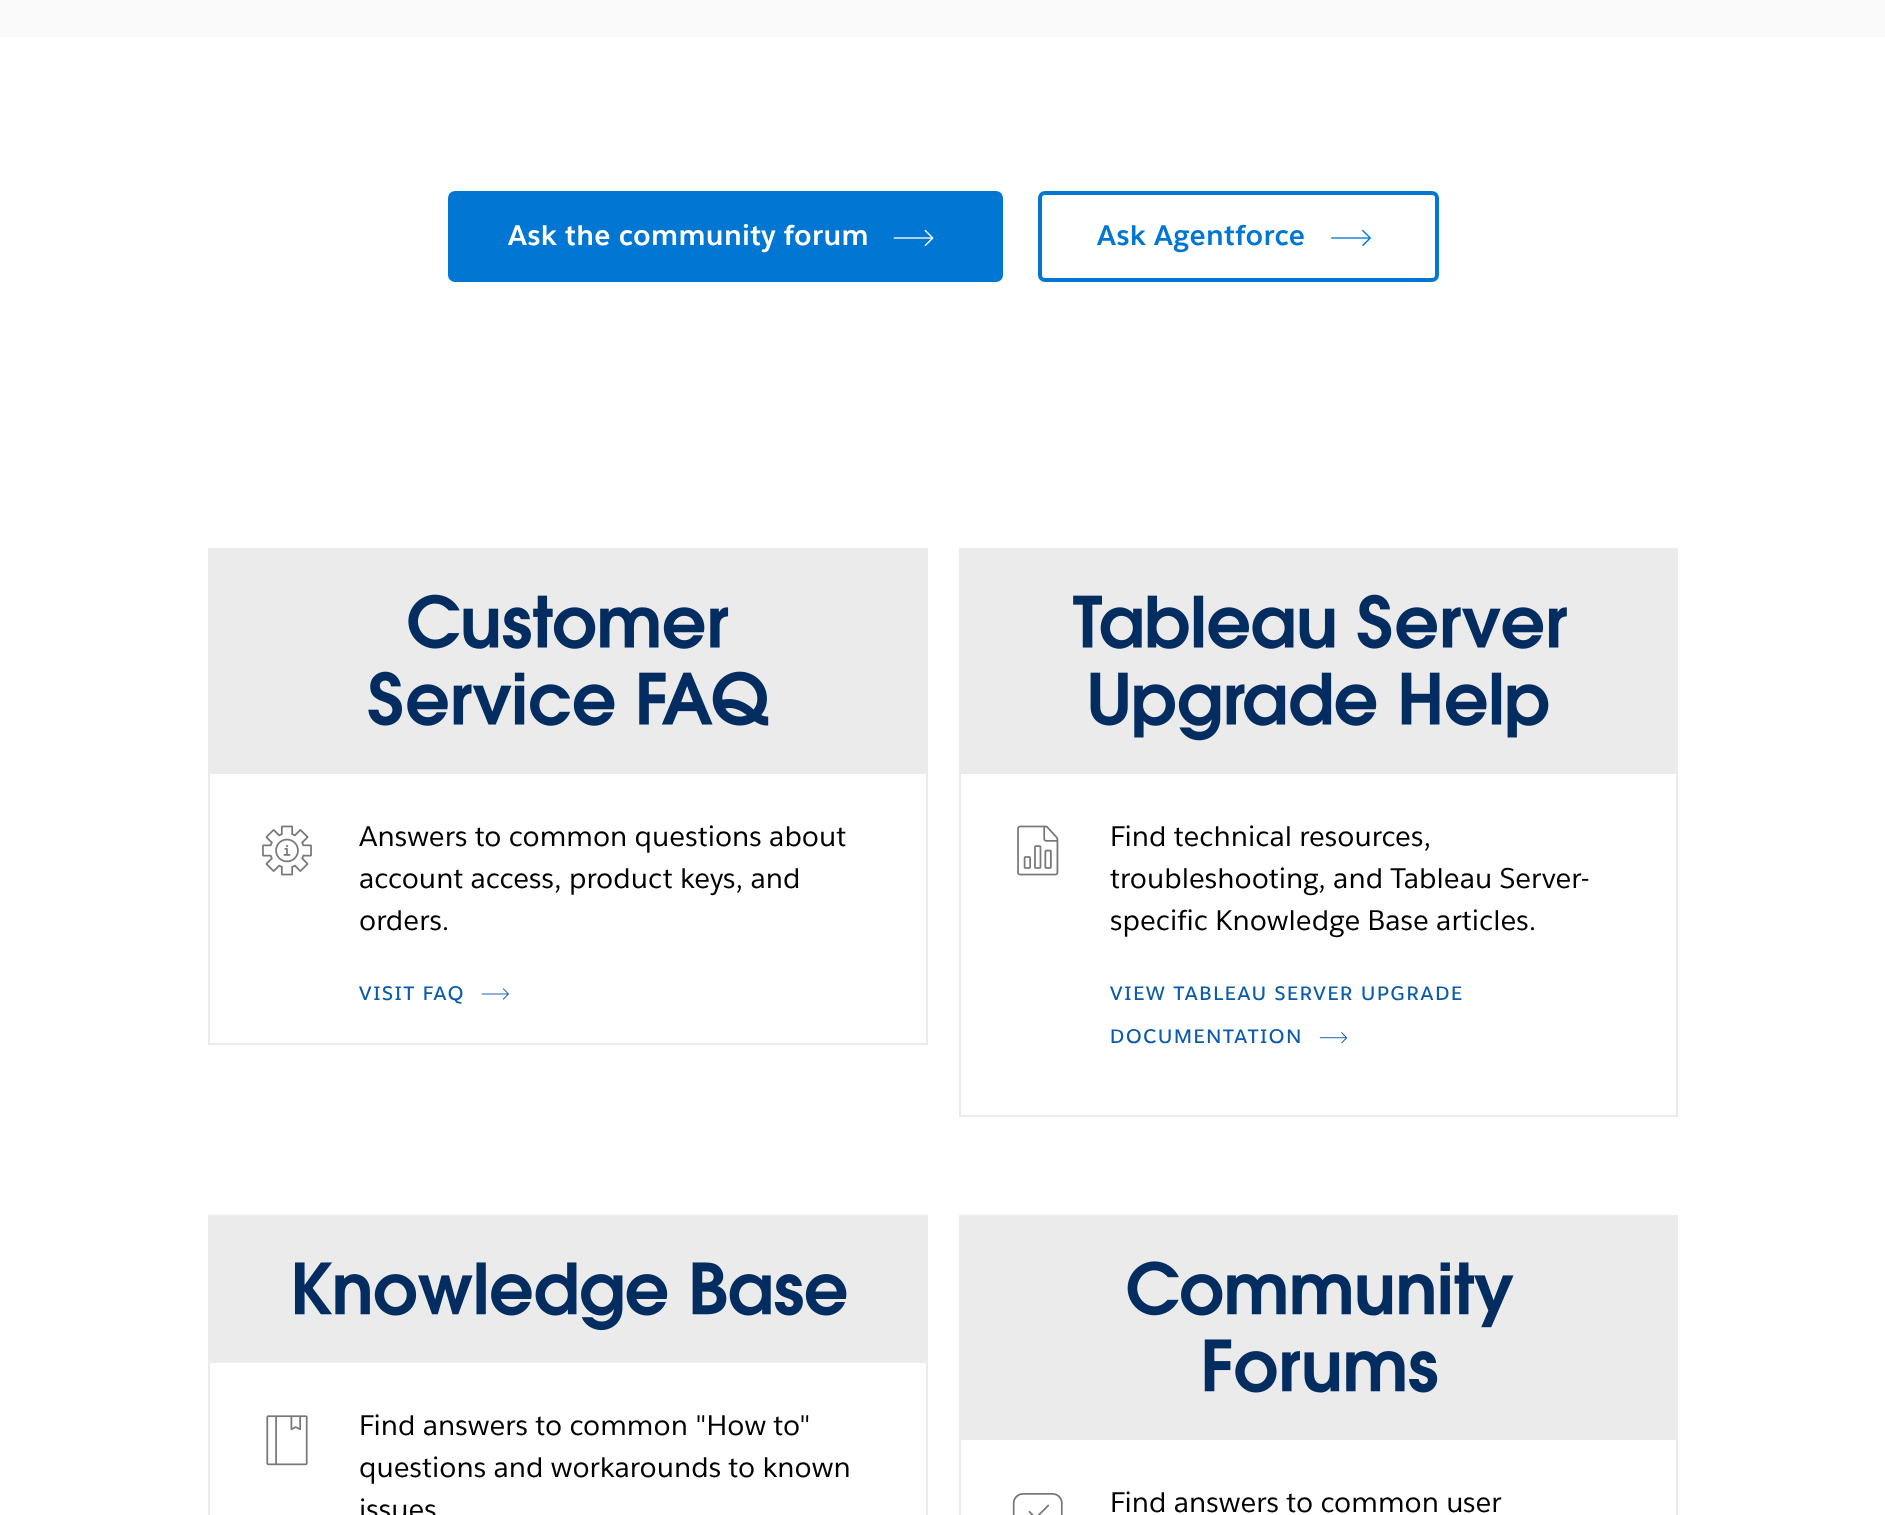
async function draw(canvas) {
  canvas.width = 1885
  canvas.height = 1515
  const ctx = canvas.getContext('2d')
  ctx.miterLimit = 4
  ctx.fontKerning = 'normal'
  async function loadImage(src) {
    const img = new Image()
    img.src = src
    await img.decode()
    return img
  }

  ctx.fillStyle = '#fff'
  ctx.fillRect(0, 0, 1885, 1515)
  ctx.fillStyle = '#fafafa'
  ctx.fillRect(0, 0, 1885, 37)
  ctx.fillStyle = '#0176d3'
  ctx.beginPath()
  ctx.roundRect(450, 193, 551, 87, 5)
  ctx.fill()
  ctx.strokeStyle = '#0176d3'
  ctx.lineWidth = 4
  ctx.stroke()
  ctx.letterSpacing = '0.35px'
  ctx.font = 'bold 28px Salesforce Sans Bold'
  ctx.fillStyle = '#fff'
  ctx.fillText('Ask the community forum', 508, 245)
  ctx.drawImage(await loadImage('image0.png'), 893, 229, 41, 17)
  ctx.beginPath()
  ctx.roundRect(1040, 193, 397, 87, 5)
  ctx.stroke()
  ctx.fillStyle = '#0176d3'
  ctx.fillText('Ask Agentforce', 1097, 245)
  ctx.drawImage(await loadImage('image1.png'), 1331, 229, 40, 17)
  ctx.strokeStyle = '#ebebeb'
  ctx.lineWidth = 2
  ctx.strokeRect(209, 549, 718, 495)
  ctx.fillStyle = '#ebebeb'
  ctx.fillRect(210, 550, 716, 224)
  ctx.drawImage(await loadImage('image2.png'), 408, 594, 321, 55)
  ctx.drawImage(await loadImage('image3.png'), 368, 671, 401, 55)
  ctx.drawImage(await loadImage('image4.png'), 262, 825, 50, 51)
  ctx.letterSpacing = '0.05px'
  ctx.font = '28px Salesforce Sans'
  ctx.fillStyle = '#000'
  ctx.fillText('Answers to common questions about', 359, 846)
  ctx.fillText('account access, product keys, and', 359, 888)
  ctx.fillText('orders.', 359, 930)
  ctx.letterSpacing = '1.75px'
  ctx.font = '600 19.25px Salesforce Sans'
  ctx.fillStyle = '#0b5cab'
  ctx.fillText('VISIT FAQ', 359, 1000)
  ctx.drawImage(await loadImage('image5.png'), 481, 988, 28, 12)
  ctx.strokeRect(960, 549, 717, 567)
  ctx.fillStyle = '#ebebeb'
  ctx.fillRect(961, 550, 715, 224)
  ctx.drawImage(await loadImage('image6.png'), 1073, 594, 494, 55)
  ctx.drawImage(await loadImage('image7.png'), 1090, 672, 459, 69)
  ctx.drawImage(await loadImage('image8.png'), 1017, 825, 42, 51)
  ctx.letterSpacing = '0.05px'
  ctx.font = '28px Salesforce Sans'
  ctx.fillStyle = '#000'
  ctx.fillText('Find technical resources,', 1110, 846)
  ctx.fillText('troubleshooting, and Tableau Server-', 1110, 888)
  ctx.fillText('specific Knowledge Base articles.', 1110, 930)
  ctx.letterSpacing = '1.75px'
  ctx.font = '600 19.25px Salesforce Sans'
  ctx.fillStyle = '#0b5cab'
  ctx.fillText('VIEW TABLEAU SERVER UPGRADE', 1110, 1000)
  ctx.fillText('DOCUMENTATION', 1110, 1043)
  ctx.drawImage(await loadImage('image9.png'), 1319, 1032, 29, 12)
  ctx.strokeRect(209, 1216, 718, 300)
  ctx.fillStyle = '#ebebeb'
  ctx.fillRect(210, 1217, 716, 146)
  ctx.drawImage(await loadImage('image10.png'), 295, 1262, 552, 69)
  ctx.drawImage(await loadImage('image11.png'), 266, 1415, 42, 51)
  ctx.letterSpacing = '0.05px'
  ctx.font = '28px Salesforce Sans'
  ctx.fillStyle = '#000'
  ctx.fillText('Find answers to common "How to"', 359, 1435)
  ctx.fillText('questions and workarounds to known', 359, 1477)
  ctx.fillText('issues', 359, 1519)
  ctx.strokeRect(960, 1216, 717, 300)
  ctx.fillStyle = '#ebebeb'
  ctx.fillRect(961, 1217, 715, 223)
  ctx.drawImage(await loadImage('image12.png'), 1127, 1261, 387, 67)
  ctx.drawImage(await loadImage('image13.png'), 1204, 1339, 234, 54)
  ctx.drawImage(await loadImage('image14.png'), 1012, 1493, 51, 22)
  ctx.fillStyle = '#000'
  ctx.fillText('Find answers to common user', 1110, 1512)
}

draw(document.querySelector('canvas'))
